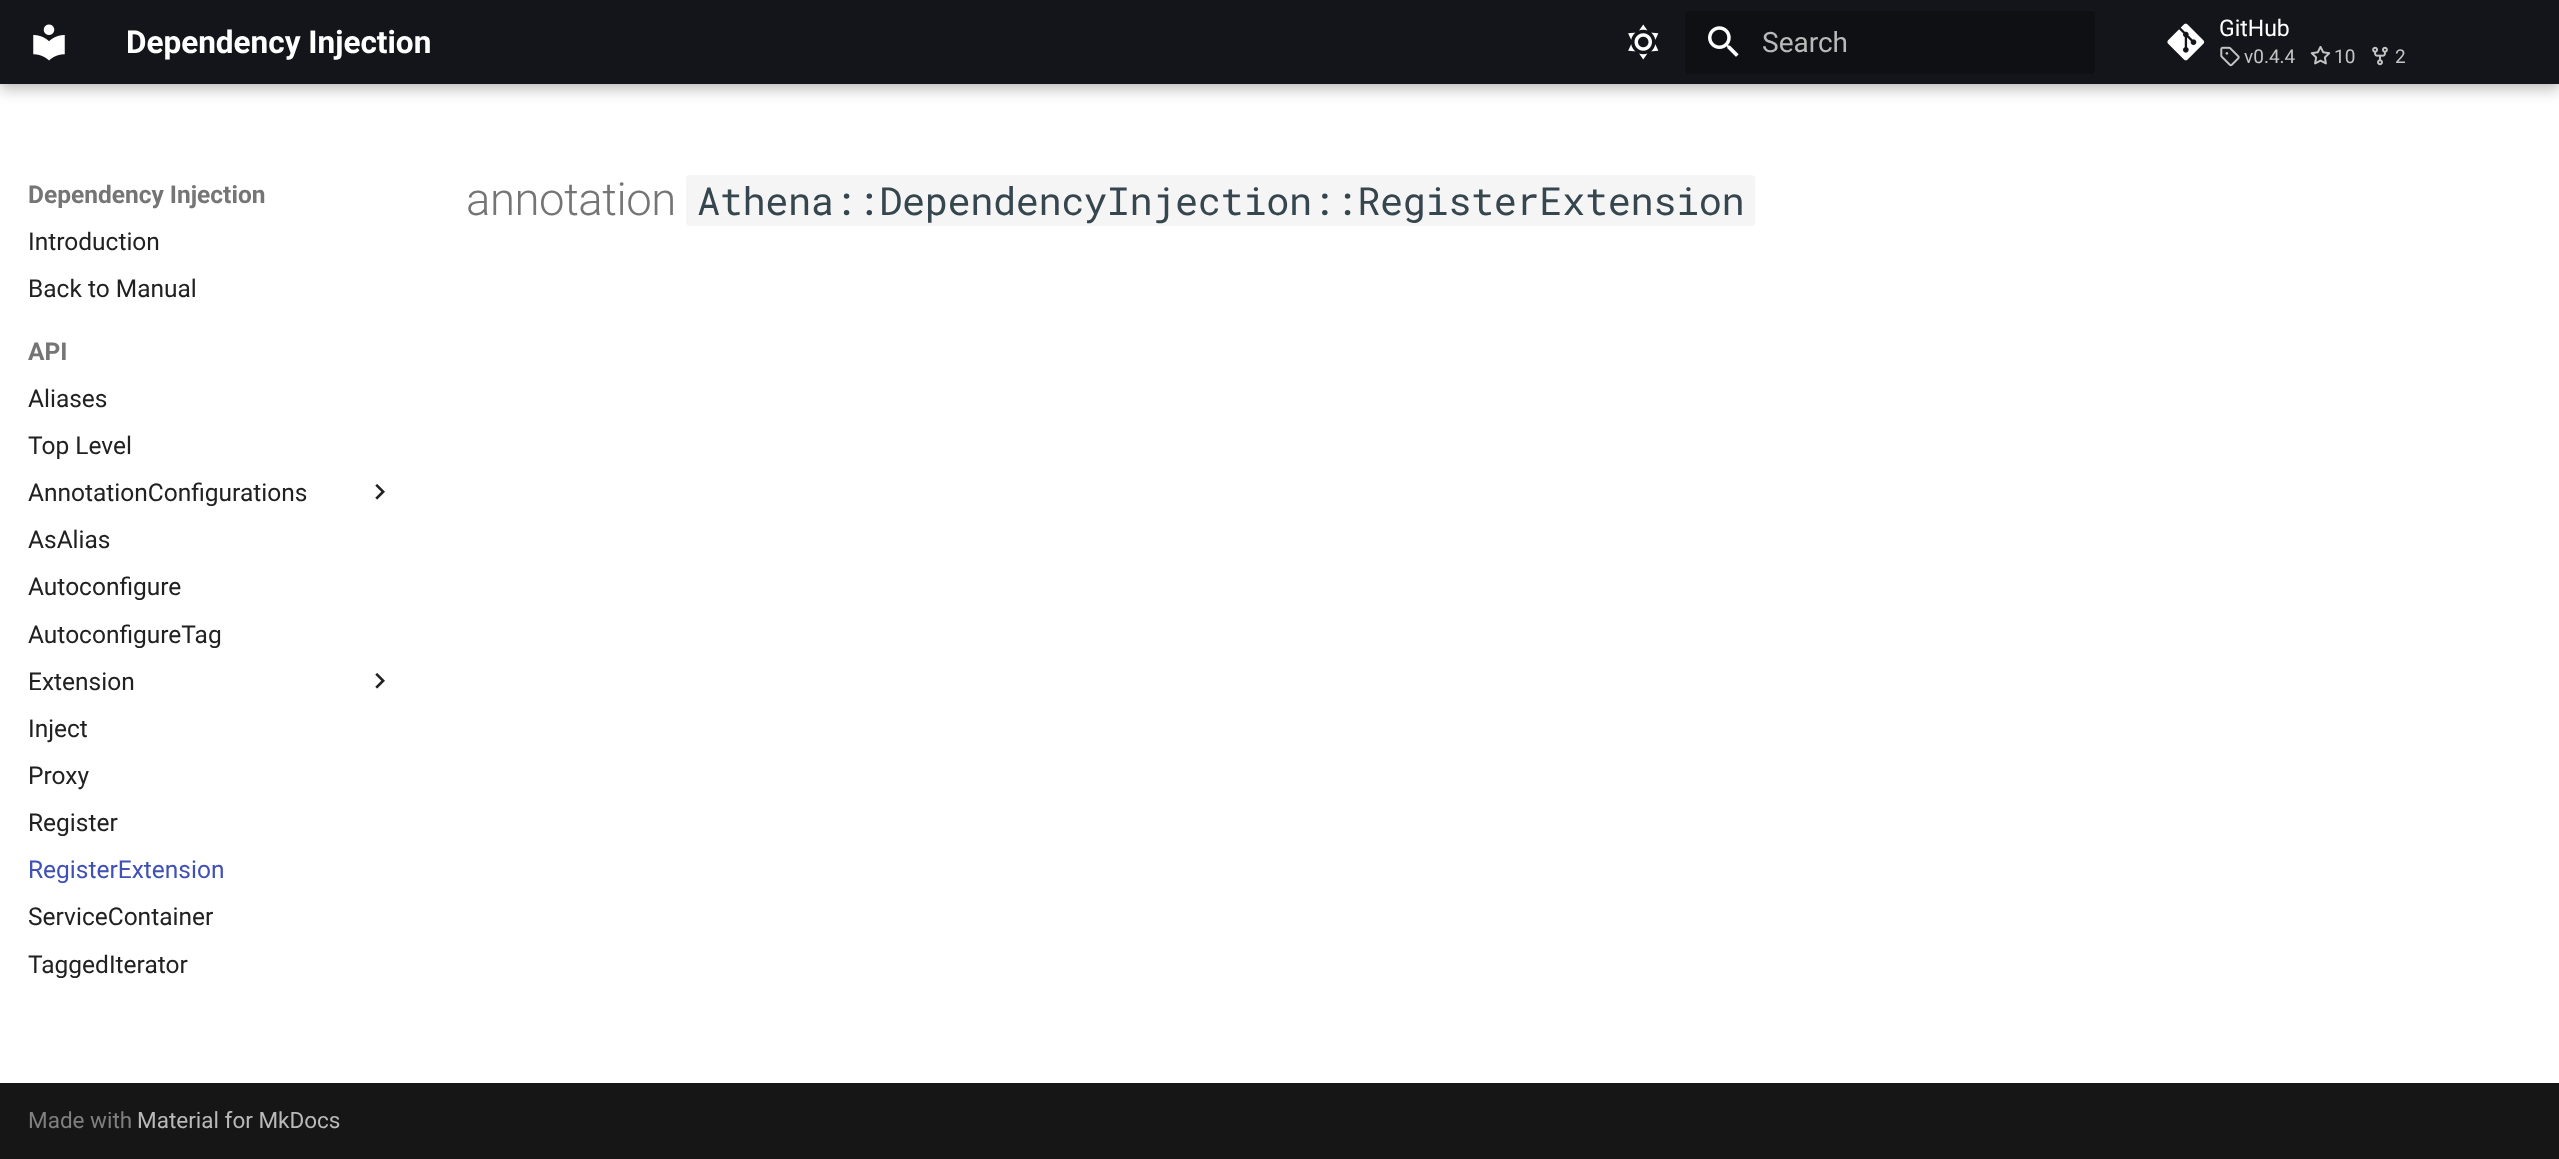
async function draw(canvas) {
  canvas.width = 2559
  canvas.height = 1159
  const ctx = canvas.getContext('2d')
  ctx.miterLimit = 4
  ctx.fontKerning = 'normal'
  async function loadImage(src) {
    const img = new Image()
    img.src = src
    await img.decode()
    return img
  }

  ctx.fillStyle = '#fff'
  ctx.fillRect(0, 0, 2559, 1159)
  ctx.fillStyle = '#00000033'
  ctx.filter = 'blur(7px)'
  ctx.beginPath()
  ctx.rect(0, 7, 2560, 84)
  ctx.fill()
  ctx.filter = 'none'
  ctx.fillStyle = '#0000001a'
  ctx.filter = 'blur(3.5px)'
  ctx.beginPath()
  ctx.rect(0, 0, 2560, 84)
  ctx.fill()
  ctx.filter = 'none'
  ctx.fillStyle = '#14151a'
  ctx.fillRect(0, 0, 2559, 84)
  ctx.drawImage(await loadImage('image0.png'), 33, 24, 32, 37)
  ctx.font = 'bold 31.5px Roboto'
  ctx.fillStyle = '#fff'
  ctx.fillText('Dependency Injection', 126, 53)
  ctx.drawImage(await loadImage('image1.png'), 1628, 24, 31, 36)
  ctx.fillStyle = '#0f1013'
  ctx.beginPath()
  ctx.roundRect(1685, 11, 410, 63, 4)
  ctx.fill()
  ctx.drawImage(await loadImage('image2.png'), 1708, 26, 31, 31)
  ctx.font = '28px Roboto'
  ctx.fillStyle = '#b9b9b9'
  ctx.fillText('Search', 1762, 52)
  ctx.drawImage(await loadImage('image3.png'), 2167, 23, 38, 38)
  ctx.font = '23px Roboto'
  ctx.fillStyle = '#fff'
  ctx.fillText('GitHub', 2219, 36)
  ctx.drawImage(await loadImage('image4.png'), 2220, 46, 20, 21)
  ctx.font = '19px Roboto'
  ctx.fillStyle = '#c4c5c6'
  ctx.fillText('v0.4.4', 2244, 63)
  ctx.drawImage(await loadImage('image5.png'), 2310, 46, 21, 19)
  ctx.fillText('10', 2334, 63)
  ctx.drawImage(await loadImage('image6.png'), 2372, 46, 16, 20)
  ctx.fillText('2', 2395, 63)
  ctx.save()
  ctx.beginPath()
  ctx.rect(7, 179, 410, 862)
  ctx.clip()
  ctx.beginPath()
  ctx.moveTo(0, 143)
  ctx.lineTo(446, 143)
  ctx.lineTo(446, 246)
  ctx.lineTo(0, 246)
  ctx.closePath()
  ctx.moveTo(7, 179)
  ctx.lineTo(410, 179)
  ctx.lineTo(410, 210)
  ctx.lineTo(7, 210)
  ctx.closePath()
  ctx.clip('evenodd')
  ctx.fillStyle = '#fff'
  ctx.filter = 'blur(7px)'
  ctx.beginPath()
  ctx.rect(-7, 165, 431, 59)
  ctx.fill()
  ctx.filter = 'none'
  ctx.restore()
  ctx.font = 'bold 24.5px Roboto'
  ctx.fillStyle = '#757575'
  ctx.fillText('Dependency Injection', 28, 203)
  ctx.font = '24.5px Roboto'
  ctx.fillStyle = '#212121'
  ctx.fillText('Introduction', 28, 250)
  ctx.fillText('Back to Manual', 28, 297)
  ctx.font = 'bold 24.5px Roboto'
  ctx.fillStyle = '#757575'
  ctx.fillText('API', 28, 360)
  ctx.font = '24.5px Roboto'
  ctx.fillStyle = '#212121'
  ctx.fillText('Aliases', 28, 407)
  ctx.fillText('Top Level', 28, 454)
  ctx.fillText('AnnotationConfigurations', 28, 501)
  ctx.drawImage(await loadImage('image7.png'), 375, 484, 10, 16)
  ctx.fillText('AsAlias', 28, 548)
  ctx.fillText('Autoconfigure', 28, 595)
  ctx.fillText('AutoconfigureTag', 28, 643)
  ctx.fillText('Extension', 28, 690)
  ctx.drawImage(await loadImage('image7.png'), 375, 673, 10, 16)
  ctx.fillText('Inject', 28, 737)
  ctx.fillText('Proxy', 28, 784)
  ctx.fillText('Register', 28, 831)
  ctx.fillStyle = '#4051b5'
  ctx.fillText('RegisterExtension', 28, 878)
  ctx.fillStyle = '#212121'
  ctx.fillText('ServiceContainer', 28, 925)
  ctx.fillText('TaggedIterator', 28, 973)
  ctx.letterSpacing = '-0.45px'
  ctx.font = '300 45.5px Roboto'
  ctx.fillStyle = '#757575'
  ctx.fillText('annotation', 466, 215)
  ctx.fillStyle = '#f5f5f5'
  ctx.beginPath()
  ctx.roundRect(686, 175, 1069, 51, 4)
  ctx.fill()
  ctx.font = '38.7px Roboto Mono'
  ctx.fillStyle = '#36464e'
  ctx.fillText('Athena::DependencyInjection::RegisterExtension', 697, 215)
  ctx.fillStyle = '#161616'
  ctx.fillRect(0, 1083, 2559, 76)
  ctx.letterSpacing = '0px'
  ctx.font = '22.5px Roboto'
  ctx.fillStyle = '#7f7f7f'
  ctx.fillText('Made with', 28, 1128)
  ctx.fillStyle = '#b9b9b9'
  ctx.fillText('Material for MkDocs', 137, 1128)
}

draw(document.querySelector('canvas'))
